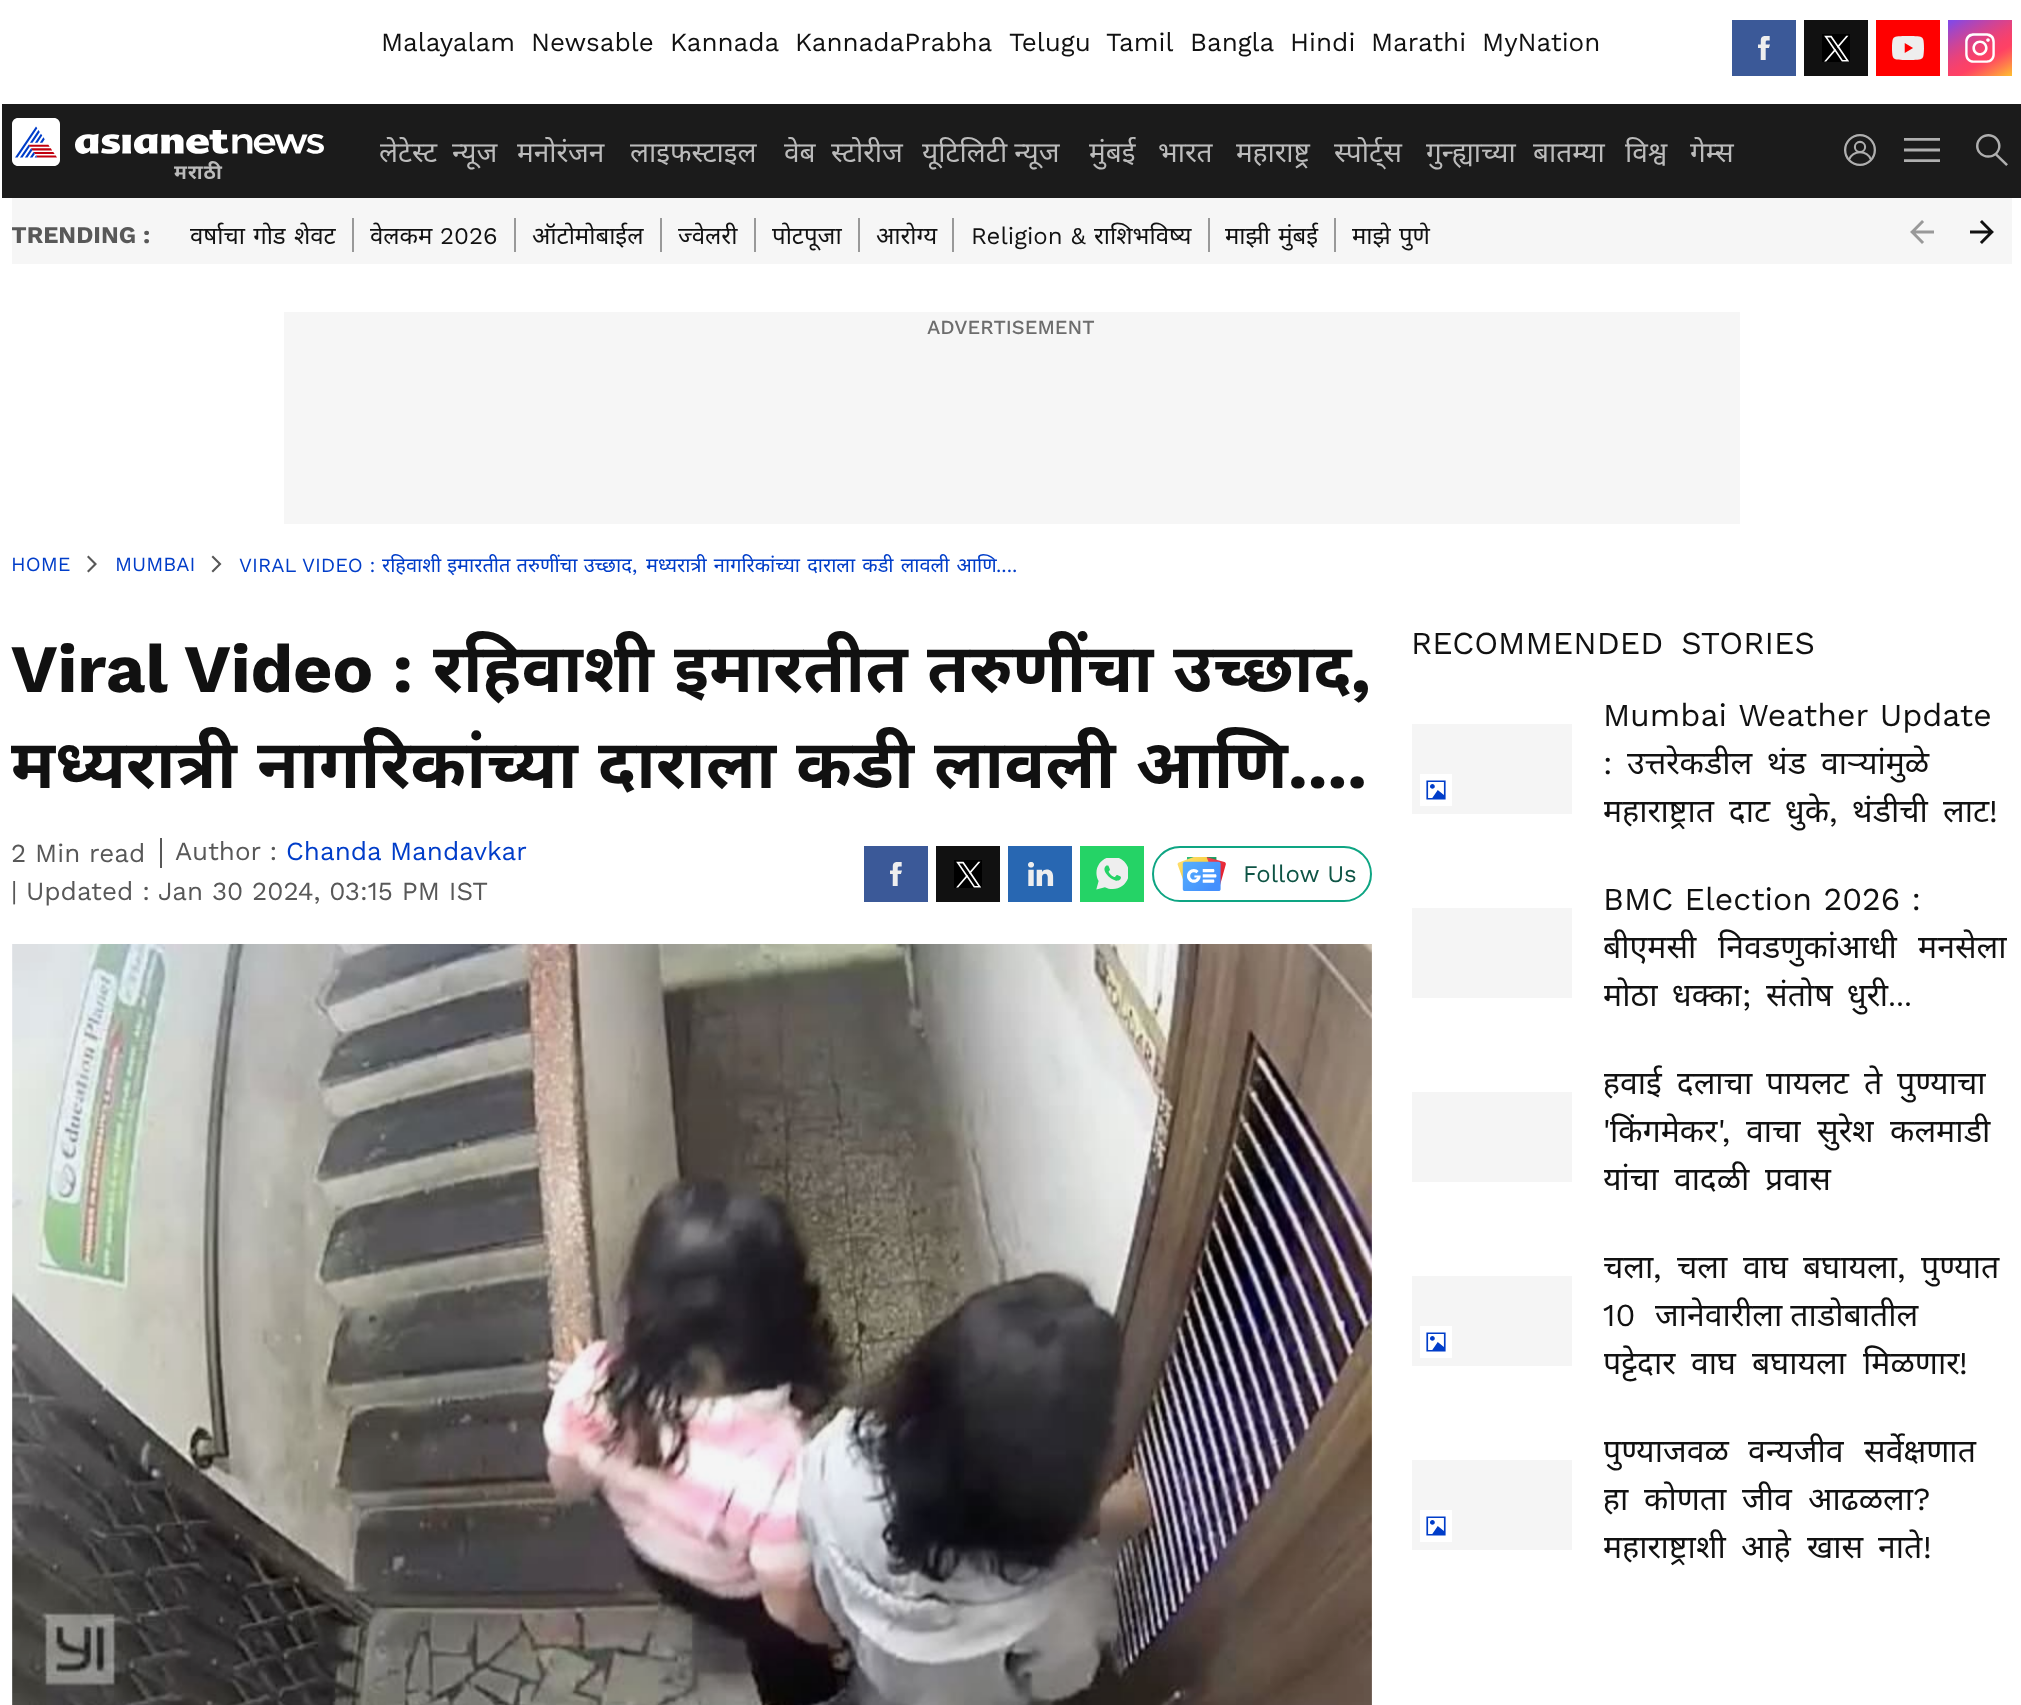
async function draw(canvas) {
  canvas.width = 2021
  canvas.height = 1705
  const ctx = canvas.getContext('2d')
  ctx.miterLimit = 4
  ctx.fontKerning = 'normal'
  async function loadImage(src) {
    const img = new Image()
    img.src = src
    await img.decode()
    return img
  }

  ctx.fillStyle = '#fff'
  ctx.fillRect(0, 0, 2021, 1705)
  ctx.font = '26px Work Sans'
  ctx.fillStyle = '#111'
  ctx.fillText('Malayalam', 381, 51)
  ctx.fillText('Newsable', 531, 51)
  ctx.fillText('Kannada', 670, 51)
  ctx.fillText('KannadaPrabha', 795, 51)
  ctx.fillText('Telugu', 1009, 51)
  ctx.fillText('Tamil', 1106, 51)
  ctx.fillText('Bangla', 1190, 51)
  ctx.fillText('Hindi', 1290, 51)
  ctx.fillText('Marathi', 1371, 51)
  ctx.fillText('MyNation', 1482, 51)
  ctx.fillStyle = '#3b5998'
  ctx.fillRect(1732, 20, 64, 56)
  ctx.drawImage(await loadImage('image0.png'), 1758, 36, 12, 24)
  ctx.fillStyle = '#111'
  ctx.fillRect(1804, 20, 64, 56)
  ctx.drawImage(await loadImage('image1.png'), 1822, 34, 28, 28)
  ctx.fillStyle = '#f00'
  ctx.fillRect(1876, 20, 64, 56)
  ctx.drawImage(await loadImage('image2.png'), 1892, 36, 32, 24)
  ctx.drawImage(await loadImage('image3.png'), 1948, 20, 64, 56)
  ctx.fillStyle = '#1b1b1b'
  ctx.fillRect(2, 104, 2019, 94)
  ctx.save()
  ctx.beginPath()
  ctx.rect(380, 104, 1356, 92)
  ctx.clip()
  ctx.font = '28px Noto Sans Devanagari'
  ctx.fillStyle = '#bbb'
  ctx.fillText('लेटेस्ट', 379, 162)
  ctx.restore()
  ctx.font = '28px Noto Sans Devanagari'
  ctx.fillStyle = '#bbb'
  ctx.fillText('न्यूज', 452, 162)
  ctx.fillText('मनोरंजन', 517, 162)
  ctx.fillText('लाइफस्टाइल', 630, 162)
  ctx.fillText('वेब', 784, 162)
  ctx.fillText('स्टोरीज', 831, 162)
  ctx.fillText('यूटिलिटी न्यूज', 922, 162)
  ctx.fillText('मुंबई', 1089, 162)
  ctx.fillText('भारत', 1158, 162)
  ctx.fillText('महाराष्ट्र', 1236, 162)
  ctx.fillText('स्पोर्ट्स', 1334, 162)
  ctx.fillText('गुन्ह्याच्या', 1426, 162)
  ctx.fillText('बातम्या', 1533, 162)
  ctx.fillText('विश्व', 1625, 162)
  ctx.fillText('गेम्स', 1690, 162)
  ctx.drawImage(await loadImage('image4.png'), 1844, 134, 32, 32)
  ctx.drawImage(await loadImage('image5.png'), 1904, 138, 36, 24)
  ctx.drawImage(await loadImage('image6.png'), 1976, 134, 32, 32)
  ctx.drawImage(await loadImage('image7.png'), 12, 118, 312, 48)
  ctx.letterSpacing = '1px'
  ctx.font = 'bold 20px Noto Sans Devanagari'
  ctx.fillText('मराठी', 174, 179)
  ctx.fillStyle = '#f6f6f6'
  ctx.fillRect(12, 198, 2000, 66)
  ctx.save()
  ctx.beginPath()
  ctx.rect(12, 198, 2000, 66)
  ctx.clip()
  ctx.letterSpacing = '0px'
  ctx.font = 'bold 24px Work Sans'
  ctx.fillStyle = '#585858'
  ctx.fillText('TRENDING :', 11, 243)
  ctx.restore()
  ctx.fillStyle = '#999'
  ctx.fillRect(352, 218, 2, 34)
  ctx.letterSpacing = '0px'
  ctx.wordSpacing = '2px'
  ctx.font = '24px Noto Sans'
  ctx.fillStyle = '#111'
  ctx.fillText('वर्षाचा गोड शेवट', 190, 244)
  ctx.fillStyle = '#999'
  ctx.fillRect(514, 218, 2, 34)
  ctx.wordSpacing = '0px'
  ctx.fillStyle = '#111'
  ctx.fillText('वेलकम', 370, 244)
  ctx.font = '24px Work Sans'
  ctx.fillText('2026', 440, 244)
  ctx.fillStyle = '#999'
  ctx.fillRect(660, 218, 2, 34)
  ctx.font = '24px Noto Sans'
  ctx.fillStyle = '#111'
  ctx.fillText('ऑटोमोबाईल', 532, 244)
  ctx.fillStyle = '#999'
  ctx.fillRect(754, 218, 2, 34)
  ctx.fillStyle = '#111'
  ctx.fillText('ज्वेलरी', 678, 244)
  ctx.fillStyle = '#999'
  ctx.fillRect(858, 218, 2, 34)
  ctx.fillStyle = '#111'
  ctx.fillText('पोटपूजा', 772, 244)
  ctx.fillStyle = '#999'
  ctx.fillRect(952, 218, 2, 34)
  ctx.fillStyle = '#111'
  ctx.fillText('आरोग्य', 876, 244)
  ctx.fillStyle = '#999'
  ctx.fillRect(1208, 218, 2, 34)
  ctx.font = '24px Work Sans'
  ctx.fillStyle = '#111'
  ctx.fillText('Religion &', 971, 244)
  ctx.font = '24px Noto Sans'
  ctx.fillText('राशिभविष्य', 1094, 244)
  ctx.fillStyle = '#999'
  ctx.fillRect(1334, 218, 2, 34)
  ctx.wordSpacing = '2px'
  ctx.fillStyle = '#111'
  ctx.fillText('माझी मुंबई', 1225, 244)
  ctx.fillText('माझे पुणे', 1352, 244)
  ctx.drawImage(await loadImage('image8.png'), 1910, 220, 24, 24)
  ctx.drawImage(await loadImage('image9.png'), 1970, 220, 24, 24)
  ctx.fillStyle = '#f6f6f6'
  ctx.fillRect(284, 312, 1456, 212)
  ctx.wordSpacing = '0px'
  ctx.font = '500 20px Work Sans'
  ctx.fillStyle = '#6d6d6d'
  ctx.fillText('ADVERTISEMENT', 927, 334)
  ctx.font = '20px Work Sans'
  ctx.fillStyle = '#003dc9'
  ctx.fillText('HOME', 11, 571)
  ctx.fillStyle = '#585858'
  ctx.beginPath()
  ctx.moveTo(88.5, 555.5)
  ctx.lineTo(97, 564)
  ctx.lineTo(94, 564)
  ctx.lineTo(87, 557)
  ctx.closePath()
  ctx.moveTo(97, 564)
  ctx.lineTo(88.5, 572.5)
  ctx.lineTo(87, 571)
  ctx.lineTo(94, 564)
  ctx.closePath()
  ctx.fill()
  ctx.fillStyle = '#003dc9'
  ctx.fillText('MUMBAI', 115, 571)
  ctx.fillStyle = '#585858'
  ctx.beginPath()
  ctx.moveTo(213, 555.5)
  ctx.lineTo(221.5, 564)
  ctx.lineTo(218.5, 564)
  ctx.lineTo(211.5, 557)
  ctx.closePath()
  ctx.moveTo(221.5, 564)
  ctx.lineTo(213, 572.5)
  ctx.lineTo(211.5, 571)
  ctx.lineTo(218.5, 564)
  ctx.closePath()
  ctx.fill()
  ctx.fillStyle = '#003dc9'
  ctx.fillText('VIRAL VIDEO :', 239, 572)
  ctx.wordSpacing = '1px'
  ctx.font = '20px Noto Sans'
  ctx.fillText('रहिवाशी इमारतीत तरुणींचा उच्छाद', 382, 572)
  ctx.wordSpacing = '0px'
  ctx.font = '20px Work Sans'
  ctx.fillText(',', 632, 572)
  ctx.wordSpacing = '2px'
  ctx.font = '20px Noto Sans'
  ctx.fillText('मध्यरात्री नागरिकांच्या दाराला कडी लावली आणि', 646, 572)
  ctx.wordSpacing = '0px'
  ctx.font = '20px Work Sans'
  ctx.fillText('....', 996, 572)
  ctx.font = 'bold 68px Work Sans'
  ctx.fillStyle = '#111'
  ctx.fillText('Viral Video :', 11, 692)
  ctx.font = 'bold 68px Noto Sans Devanagari'
  ctx.fillText('रहिवाशी', 433, 692)
  ctx.fillText('इमारतीत', 674, 692)
  ctx.fillText('तरुणींचा', 927, 692)
  ctx.fillText('उच्छाद', 1173, 692)
  ctx.font = 'bold 68px Work Sans'
  ctx.fillText(',', 1351, 692)
  ctx.font = 'bold 68px Noto Sans Devanagari'
  ctx.fillText('मध्यरात्री', 11, 788)
  ctx.fillText('नागरिकांच्या', 257, 788)
  ctx.fillText('दाराला', 598, 788)
  ctx.fillText('कडी', 796, 788)
  ctx.fillText('लावली', 934, 788)
  ctx.fillText('आणि', 1136, 788)
  ctx.font = 'bold 68px Work Sans'
  ctx.fillText('....', 1288, 788)
  ctx.font = '26px Work Sans'
  ctx.fillStyle = '#585858'
  ctx.fillText('Author :', 175, 860)
  ctx.fillStyle = '#003dc9'
  ctx.fillText('Chanda Mandavkar', 286, 860)
  ctx.fillStyle = '#585858'
  ctx.fillText('|', 11, 900)
  ctx.fillText('Updated :', 26, 900)
  ctx.fillText('Jan 30 2024, 03:15 PM IST', 158, 900)
  ctx.fillText('2 Min read', 11, 862)
  ctx.fillRect(160, 838, 2, 30)
  ctx.fillStyle = '#3b5998'
  ctx.fillRect(864, 846, 64, 56)
  ctx.drawImage(await loadImage('image0.png'), 890, 862, 12, 24)
  ctx.fillStyle = '#111'
  ctx.fillRect(936, 846, 64, 56)
  ctx.drawImage(await loadImage('image1.png'), 954, 860, 28, 28)
  ctx.fillStyle = '#2867b2'
  ctx.fillRect(1008, 846, 64, 56)
  ctx.drawImage(await loadImage('image10.png'), 1028, 862, 26, 24)
  ctx.fillStyle = '#25d366'
  ctx.fillRect(1080, 846, 64, 56)
  ctx.drawImage(await loadImage('image11.png'), 1096, 858, 32, 32)
  ctx.beginPath()
  ctx.roundRect(1153, 847, 218, 54, 27)
  ctx.strokeStyle = '#0ea583'
  ctx.lineWidth = 2
  ctx.stroke()
  ctx.drawImage(await loadImage('image12.png'), 1177, 857, 49, 34)
  ctx.font = '24px Work Sans'
  ctx.fillStyle = '#0e5445'
  ctx.fillText('Follow Us', 1243, 882)
  ctx.drawImage(await loadImage('image13.png'), 12, 944, 1360, 761)
  ctx.wordSpacing = '7px'
  ctx.font = '32px Work Sans'
  ctx.fillStyle = '#111'
  ctx.fillText('RECOMMENDED STORIES', 1411, 654)
  ctx.fillStyle = '#f5f5f5'
  ctx.fillRect(1412, 724, 160, 90)
  ctx.fillStyle = '#fff'
  ctx.fillRect(1420, 774, 32, 32)
  ctx.drawImage(await loadImage('image14.png'), 1426, 780, 20, 20)
  ctx.wordSpacing = '1px'
  ctx.fillStyle = '#111'
  ctx.fillText('Mumbai Weather Update', 1603, 726)
  ctx.wordSpacing = '0px'
  ctx.fillText(':', 1603, 774)
  ctx.font = '32px Noto Sans Devanagari'
  ctx.fillText('उत्तरेकडील', 1627, 774)
  ctx.fillText('थंड', 1767, 774)
  ctx.fillText('वाऱ्यांमुळे', 1821, 774)
  ctx.save()
  ctx.beginPath()
  ctx.rect(1604, 692, 408, 144)
  ctx.clip()
  ctx.fillText('महाराष्ट्रात', 1603, 822)
  ctx.restore()
  ctx.fillText('दाट', 1729, 822)
  ctx.fillText('धुके', 1785, 822)
  ctx.font = '32px Work Sans'
  ctx.fillText(',', 1829, 822)
  ctx.font = '32px Noto Sans Devanagari'
  ctx.fillText('थंडीची', 1852, 822)
  ctx.fillText('लाट', 1943, 822)
  ctx.font = '32px Work Sans'
  ctx.fillText('!', 1989, 822)
  ctx.fillStyle = '#f5f5f5'
  ctx.fillRect(1412, 908, 160, 90)
  ctx.wordSpacing = '0.5px'
  ctx.fillStyle = '#111'
  ctx.fillText('BMC Election 2026 :', 1603, 910)
  ctx.save()
  ctx.beginPath()
  ctx.rect(1604, 876, 408, 144)
  ctx.clip()
  ctx.wordSpacing = '0px'
  ctx.font = '32px Noto Sans Devanagari'
  ctx.fillText('बीएमसी', 1603, 958)
  ctx.restore()
  ctx.wordSpacing = '0px'
  ctx.font = '32px Noto Sans Devanagari'
  ctx.fillText('निवडणुकांआधी', 1718, 958)
  ctx.fillText('मनसेला', 1918, 958)
  ctx.save()
  ctx.beginPath()
  ctx.rect(1604, 876, 408, 144)
  ctx.clip()
  ctx.fillText('मोठा', 1603, 1006)
  ctx.restore()
  ctx.fillText('धक्का', 1672, 1006)
  ctx.font = '32px Work Sans'
  ctx.fillText(';', 1742, 1006)
  ctx.font = '32px Noto Sans Devanagari'
  ctx.fillText('संतोष', 1766, 1006)
  ctx.fillText('धुरी...', 1847, 1006)
  ctx.fillStyle = '#f5f5f5'
  ctx.fillRect(1412, 1092, 160, 90)
  ctx.save()
  ctx.beginPath()
  ctx.rect(1604, 1060, 408, 144)
  ctx.clip()
  ctx.fillStyle = '#111'
  ctx.fillText('हवाई', 1603, 1094)
  ctx.restore()
  ctx.fillStyle = '#111'
  ctx.fillText('दलाचा', 1677, 1094)
  ctx.fillText('पायलट', 1766, 1094)
  ctx.fillText('ते', 1864, 1094)
  ctx.fillText('पुण्याचा', 1897, 1094)
  ctx.font = '32px Work Sans'
  ctx.fillText('\'', 1603, 1142)
  ctx.font = '32px Noto Sans Devanagari'
  ctx.fillText('किंगमेकर', 1610, 1142)
  ctx.font = '32px Work Sans'
  ctx.fillText('\',', 1718, 1142)
  ctx.font = '32px Noto Sans Devanagari'
  ctx.fillText('वाचा', 1746, 1142)
  ctx.fillText('सुरेश', 1817, 1142)
  ctx.fillText('कलमाडी', 1890, 1142)
  ctx.save()
  ctx.beginPath()
  ctx.rect(1604, 1060, 408, 144)
  ctx.clip()
  ctx.fillText('यांचा', 1603, 1190)
  ctx.restore()
  ctx.fillText('वादळी', 1674, 1190)
  ctx.fillText('प्रवास', 1765, 1190)
  ctx.fillStyle = '#f5f5f5'
  ctx.fillRect(1412, 1276, 160, 90)
  ctx.fillStyle = '#fff'
  ctx.fillRect(1420, 1326, 32, 32)
  ctx.drawImage(await loadImage('image14.png'), 1426, 1332, 20, 20)
  ctx.save()
  ctx.beginPath()
  ctx.rect(1604, 1244, 408, 144)
  ctx.clip()
  ctx.fillStyle = '#111'
  ctx.fillText('चला', 1603, 1278)
  ctx.restore()
  ctx.font = '32px Work Sans'
  ctx.fillStyle = '#111'
  ctx.fillText(',', 1653, 1278)
  ctx.font = '32px Noto Sans Devanagari'
  ctx.fillText('चला', 1677, 1278)
  ctx.fillText('वाघ', 1743, 1278)
  ctx.fillText('बघायला', 1803, 1278)
  ctx.font = '32px Work Sans'
  ctx.fillText(',', 1897, 1278)
  ctx.font = '32px Noto Sans Devanagari'
  ctx.fillText('पुण्यात', 1921, 1278)
  ctx.font = '32px Work Sans'
  ctx.fillText('10', 1603, 1326)
  ctx.font = '32px Noto Sans Devanagari'
  ctx.fillText('जानेवारीला ताडोबातील', 1655, 1326)
  ctx.save()
  ctx.beginPath()
  ctx.rect(1604, 1244, 408, 144)
  ctx.clip()
  ctx.fillText('पट्टेदार', 1603, 1374)
  ctx.restore()
  ctx.fillText('वाघ', 1691, 1374)
  ctx.fillText('बघायला', 1752, 1374)
  ctx.fillText('मिळणार', 1863, 1374)
  ctx.font = '32px Work Sans'
  ctx.fillText('!', 1959, 1374)
  ctx.fillStyle = '#f5f5f5'
  ctx.fillRect(1412, 1460, 160, 90)
  ctx.fillStyle = '#fff'
  ctx.fillRect(1420, 1510, 32, 32)
  ctx.drawImage(await loadImage('image14.png'), 1426, 1516, 20, 20)
  ctx.save()
  ctx.beginPath()
  ctx.rect(1604, 1428, 408, 144)
  ctx.clip()
  ctx.font = '32px Noto Sans Devanagari'
  ctx.fillStyle = '#111'
  ctx.fillText('पुण्याजवळ', 1603, 1462)
  ctx.restore()
  ctx.font = '32px Noto Sans Devanagari'
  ctx.fillStyle = '#111'
  ctx.fillText('वन्यजीव', 1748, 1462)
  ctx.fillText('सर्वेक्षणात', 1864, 1462)
  ctx.save()
  ctx.beginPath()
  ctx.rect(1604, 1428, 408, 144)
  ctx.clip()
  ctx.fillText('हा', 1603, 1510)
  ctx.restore()
  ctx.fillText('कोणता', 1644, 1510)
  ctx.fillText('जीव', 1742, 1510)
  ctx.fillText('आढळला', 1808, 1510)
  ctx.font = '32px Work Sans'
  ctx.fillText('?', 1913, 1510)
  ctx.save()
  ctx.beginPath()
  ctx.rect(1604, 1428, 408, 144)
  ctx.clip()
  ctx.font = '32px Noto Sans Devanagari'
  ctx.fillText('महाराष्ट्राशी', 1603, 1558)
  ctx.restore()
  ctx.font = '32px Noto Sans Devanagari'
  ctx.fillText('आहे', 1741, 1558)
  ctx.fillText('खास', 1807, 1558)
  ctx.fillText('नाते', 1878, 1558)
  ctx.font = '32px Work Sans'
  ctx.fillText('!', 1923, 1558)
}

draw(document.querySelector('canvas'))
